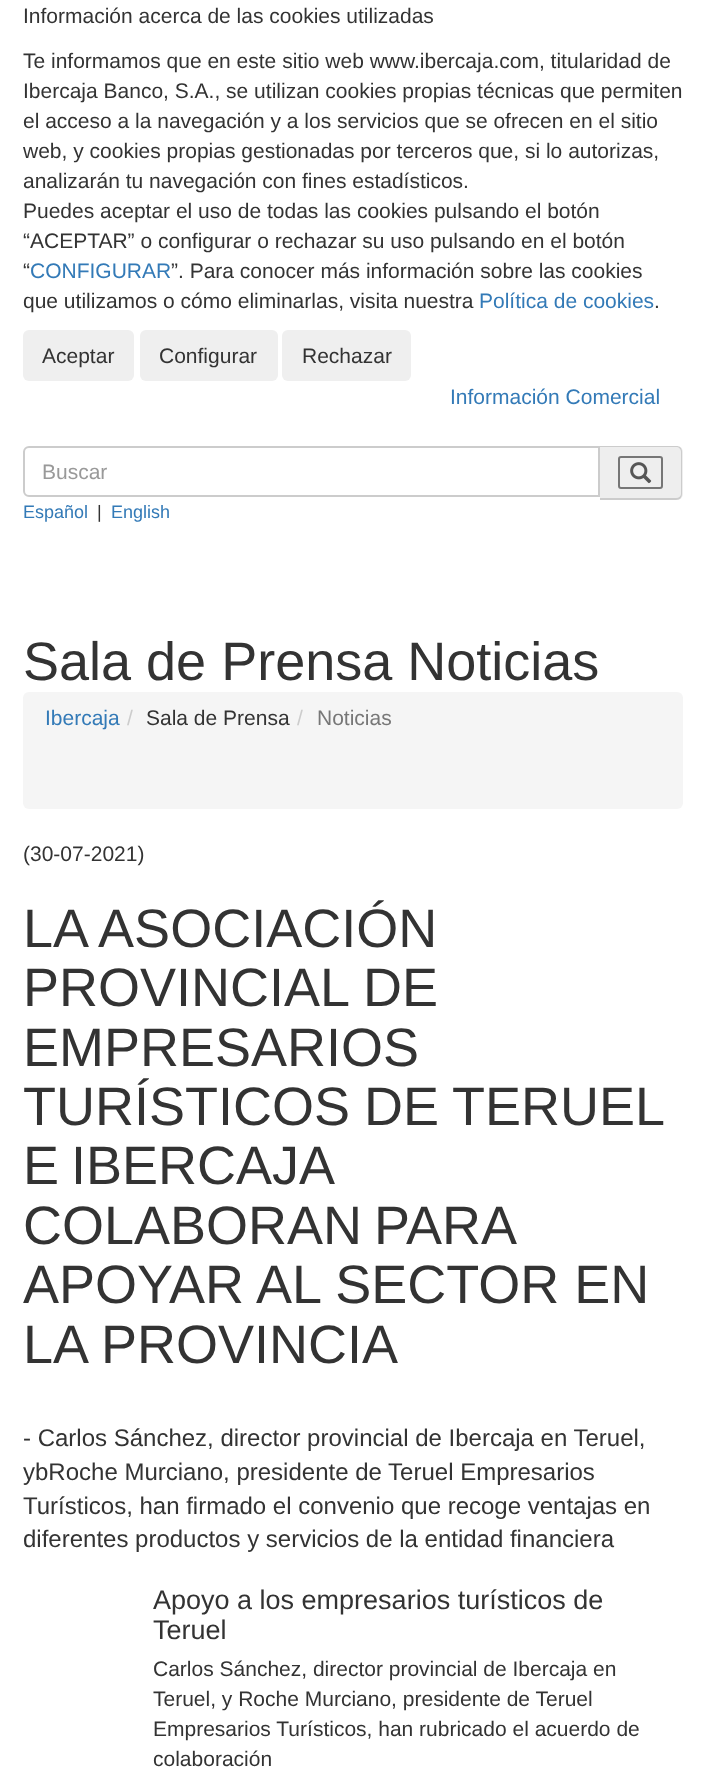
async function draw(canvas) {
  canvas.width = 704
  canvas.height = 1783
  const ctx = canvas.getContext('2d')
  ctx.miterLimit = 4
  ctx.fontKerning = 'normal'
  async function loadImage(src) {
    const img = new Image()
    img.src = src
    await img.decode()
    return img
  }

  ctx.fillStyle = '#fff'
  ctx.fillRect(0, 0, 704, 1783)
  ctx.font = '21px Liberation Sans'
  ctx.fillStyle = '#333'
  ctx.fillText('Información acerca de las cookies utilizadas', 23, 23)
  ctx.fillText('Te informamos que en este sitio web www.ibercaja.com, titularidad de', 23, 68)
  ctx.fillText('Ibercaja Banco, S.A., se utilizan cookies propias técnicas que permiten', 23, 98)
  ctx.fillText('el acceso a la navegación y a los servicios que se ofrecen en el sitio', 23, 128)
  ctx.fillText('web, y cookies propias gestionadas por terceros que, si lo autorizas,', 23, 158)
  ctx.fillText('analizarán tu navegación con fines estadísticos.', 23, 188)
  ctx.fillText('Puedes aceptar el uso de todas las cookies pulsando el botón', 23, 218)
  ctx.fillText('“ACEPTAR” o configurar o rechazar su uso pulsando en el botón', 23, 248)
  ctx.fillText('“', 23, 278)
  ctx.fillStyle = '#337ab7'
  ctx.fillText('CONFIGURAR', 30, 278)
  ctx.fillStyle = '#333'
  ctx.fillText('”. Para conocer más información sobre las cookies', 171, 278)
  ctx.fillText('que utilizamos o cómo eliminarlas, visita nuestra', 23, 308)
  ctx.fillStyle = '#337ab7'
  ctx.fillText('Política de cookies', 479, 308)
  ctx.fillStyle = '#333'
  ctx.fillText('.', 654, 308)
  ctx.fillStyle = '#efefef'
  ctx.beginPath()
  ctx.roundRect(23, 330, 111, 51, 6)
  ctx.fill()
  ctx.fillStyle = '#333'
  ctx.fillText('Aceptar', 42, 363)
  ctx.fillStyle = '#efefef'
  ctx.beginPath()
  ctx.roundRect(140, 330, 138, 51, 6)
  ctx.fill()
  ctx.fillStyle = '#333'
  ctx.fillText('Configurar', 159, 363)
  ctx.fillStyle = '#efefef'
  ctx.beginPath()
  ctx.roundRect(282, 330, 129, 51, 6)
  ctx.fill()
  ctx.fillStyle = '#333'
  ctx.fillText('Rechazar', 302, 363)
  ctx.fillStyle = '#337ab7'
  ctx.fillText('Información Comercial', 450, 404)
  ctx.beginPath()
  ctx.roundRect(24, 447, 575, 49, [5, 0, 0, 5])
  ctx.strokeStyle = '#ccc'
  ctx.lineWidth = 2
  ctx.stroke()
  ctx.fillStyle = '#999'
  ctx.fillText('Buscar', 42, 479)
  ctx.fillStyle = '#eee'
  ctx.beginPath()
  ctx.roundRect(600, 446, 83, 54, [0, 6, 6, 0])
  ctx.fill()
  ctx.fillStyle = '#ccc'
  ctx.beginPath()
  ctx.moveTo(600, 446)
  ctx.lineTo(676, 446)
  ctx.bezierCurveTo(680, 446, 682, 448, 682, 452)
  ctx.lineTo(682, 494)
  ctx.bezierCurveTo(682, 497, 680, 500, 676, 500)
  ctx.lineTo(600, 500)
  ctx.closePath()
  ctx.moveTo(600, 447)
  ctx.lineTo(676, 447)
  ctx.bezierCurveTo(679, 447, 681, 449, 681, 452)
  ctx.lineTo(681, 494)
  ctx.bezierCurveTo(681, 496, 679, 498, 676, 498)
  ctx.lineTo(600, 498)
  ctx.closePath()
  ctx.fill('evenodd')
  ctx.beginPath()
  ctx.roundRect(619, 457, 43, 31, 2)
  ctx.strokeStyle = '#767676'
  ctx.stroke()
  ctx.drawImage(await loadImage('image0.png'), 630, 462, 22, 22)
  ctx.font = '18px Liberation Sans'
  ctx.fillStyle = '#337ab7'
  ctx.fillText('Español', 23, 518)
  ctx.fillStyle = '#333'
  ctx.fillText('|', 97, 518)
  ctx.fillStyle = '#337ab7'
  ctx.fillText('English', 111, 518)
  ctx.font = '54px Liberation Sans'
  ctx.fillStyle = '#333'
  ctx.fillText('Sala de Prensa Noticias', 23, 680)
  ctx.fillStyle = '#f5f5f5'
  ctx.beginPath()
  ctx.roundRect(23, 692, 660, 117, 6)
  ctx.fill()
  ctx.font = '21px Liberation Sans'
  ctx.fillStyle = '#337ab7'
  ctx.fillText('Ibercaja', 45, 725)
  ctx.fillStyle = '#ccc'
  ctx.fillText('/', 127, 725)
  ctx.fillStyle = '#333'
  ctx.fillText('Sala de Prensa', 146, 725)
  ctx.fillStyle = '#ccc'
  ctx.fillText('/', 297, 725)
  ctx.fillStyle = '#777'
  ctx.fillText('Noticias', 317, 725)
  ctx.fillStyle = '#333'
  ctx.fillText('(30-07-2021)', 23, 861)
  ctx.font = '54px Liberation Sans'
  ctx.fillText('LA ASOCIACIÓN', 23, 947)
  ctx.fillText('PROVINCIAL DE', 23, 1006)
  ctx.fillText('EMPRESARIOS', 23, 1066)
  ctx.wordSpacing = '-1px'
  ctx.fillText('TURÍSTICOS DE TERUEL', 23, 1125)
  ctx.wordSpacing = '-3px'
  ctx.fillText('E IBERCAJA', 23, 1184)
  ctx.fillText('COLABORAN PARA', 23, 1244)
  ctx.wordSpacing = '0px'
  ctx.fillText('APOYAR AL SECTOR EN', 23, 1303)
  ctx.fillText('LA PROVINCIA', 23, 1363)
  ctx.font = '24px Liberation Sans'
  ctx.fillText('- Carlos Sánchez, director provincial de Ibercaja en Teruel,', 23, 1446)
  ctx.fillText('ybRoche Murciano, presidente de Teruel Empresarios', 23, 1480)
  ctx.fillText('Turísticos, han firmado el convenio que recoge ventajas en', 23, 1514)
  ctx.fillText('diferentes productos y servicios de la entidad financiera', 23, 1547)
  ctx.font = '27px Liberation Sans'
  ctx.fillText('Apoyo a los empresarios turísticos de', 153, 1609)
  ctx.fillText('Teruel', 153, 1639)
  ctx.font = '21px Liberation Sans'
  ctx.fillText('Carlos Sánchez, director provincial de Ibercaja en', 153, 1676)
  ctx.fillText('Teruel, y Roche Murciano, presidente de Teruel', 153, 1706)
  ctx.fillText('Empresarios Turísticos, han rubricado el acuerdo de', 153, 1736)
  ctx.fillText('colaboración', 153, 1766)
}

draw(document.querySelector('canvas'))
